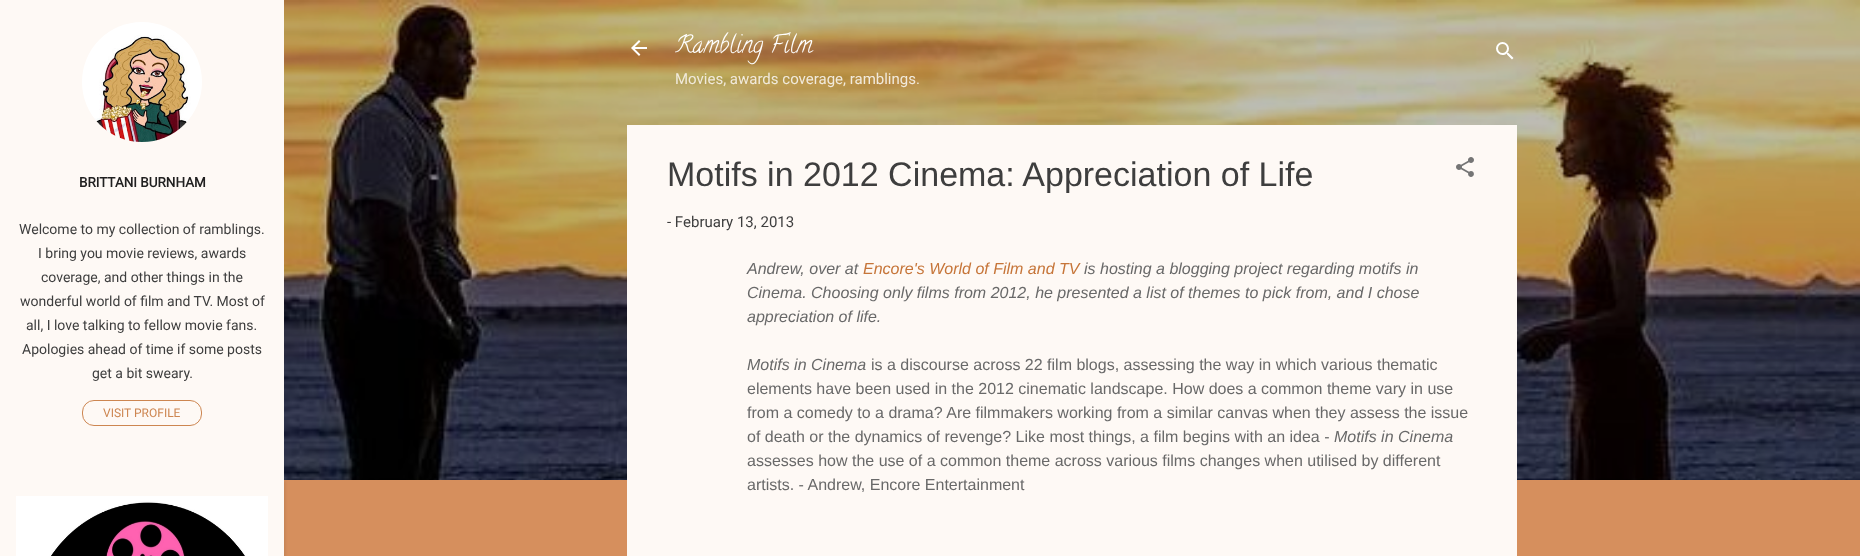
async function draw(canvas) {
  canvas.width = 1860
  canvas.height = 556
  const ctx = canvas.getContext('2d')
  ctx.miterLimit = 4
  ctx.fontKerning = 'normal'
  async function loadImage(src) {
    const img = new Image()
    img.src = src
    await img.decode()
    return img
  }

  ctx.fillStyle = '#d68f5d'
  ctx.fillRect(0, 0, 1860, 556)
  ctx.drawImage(await loadImage('image2.png'), 284, 0, 1576, 480)
  ctx.fillStyle = '#0000001a'
  ctx.filter = 'blur(1.5px)'
  ctx.beginPath()
  ctx.rect(1, 481, 284, 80)
  ctx.fill()
  ctx.filter = 'none'
  ctx.fillStyle = '#fef9f5'
  ctx.fillRect(0, 0, 284, 556)
  ctx.drawImage(await loadImage('image0.png'), 82, 22, 120, 120)
  ctx.font = 'bold 13.5px Roboto'
  ctx.fillStyle = '#212020'
  ctx.fillText('BRITTANI BURNHAM', 79, 187)
  ctx.font = '14px Roboto'
  ctx.fillStyle = '#3e3e3e'
  ctx.fillText('Welcome to my collection of ramblings.', 19, 234)
  ctx.fillText('I bring you movie reviews, awards', 38, 258)
  ctx.fillText('coverage, and other things in the', 41, 282)
  ctx.fillText('wonderful world of film and TV. Most of', 20, 306)
  ctx.fillText('all, I love talking to fellow movie fans.', 26, 330)
  ctx.fillText('Apologies ahead of time if some posts', 22, 354)
  ctx.fillText('get a bit sweary.', 92, 378)
  ctx.beginPath()
  ctx.roundRect(82.5, 400.5, 119, 25, 11.5)
  ctx.strokeStyle = '#cd8651'
  ctx.stroke()
  ctx.font = '12px Roboto'
  ctx.fillStyle = '#cd8651'
  ctx.fillText('VISIT PROFILE', 103, 417)
  ctx.drawImage(await loadImage('image1.png'), 16, 496, 252, 60)
  ctx.drawImage(await loadImage('image3.png'), 631, 40, 16, 16)
  ctx.font = '24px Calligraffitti'
  ctx.fillStyle = '#fff'
  ctx.fillText('Rambling Film', 675, 52)
  ctx.font = '15px Roboto'
  ctx.fillStyle = '#f1eadc'
  ctx.fillText('Movies, awards coverage, ramblings.', 675, 84)
  ctx.drawImage(await loadImage('image4.png'), 1496, 42, 18, 18)
  ctx.fillStyle = '#fef9f5'
  ctx.fillRect(627, 125, 890, 431)
  ctx.font = '34px Liberation Sans'
  ctx.fillStyle = '#3e3e3e'
  ctx.fillText('Motifs in 2012 Cinema: Appreciation of Life', 667, 186)
  ctx.drawImage(await loadImage('image5.png'), 1456, 157, 18, 20)
  ctx.font = '15px Roboto'
  ctx.fillText('- February 13, 2013', 667, 227)
  ctx.font = 'italic 16px Liberation Sans'
  ctx.fillStyle = '#696969'
  ctx.fillText('Andrew, over at', 747, 274)
  ctx.fillStyle = '#c67539'
  ctx.fillText('Encore\'s World of Film and TV', 863, 274)
  ctx.fillStyle = '#696969'
  ctx.fillText('is hosting a blogging project regarding motifs in', 1084, 274)
  ctx.fillText('Cinema. Choosing only films from 2012, he presented a list of themes to pick from, and I chose', 747, 298)
  ctx.fillText('appreciation of life.', 747, 322)
  ctx.fillText('Motifs in Cinema', 747, 370)
  ctx.font = '16px Liberation Sans'
  ctx.fillText('is a discourse across 22 film blogs, assessing the way in which various thematic', 871, 370)
  ctx.fillText('elements have been used in the 2012 cinematic landscape. How does a common theme vary in use', 747, 394)
  ctx.fillText('from a comedy to a drama? Are filmmakers working from a similar canvas when they assess the issue', 747, 418)
  ctx.fillText('of death or the dynamics of revenge? Like most things, a film begins with an idea -', 747, 442)
  ctx.font = 'italic 16px Liberation Sans'
  ctx.fillText('Motifs in Cinema', 1334, 442)
  ctx.font = '16px Liberation Sans'
  ctx.fillText('assesses how the use of a common theme across various films changes when utilised by different', 747, 466)
  ctx.fillText('artists. - Andrew, Encore Entertainment', 747, 490)
}

draw(document.querySelector('canvas'))
